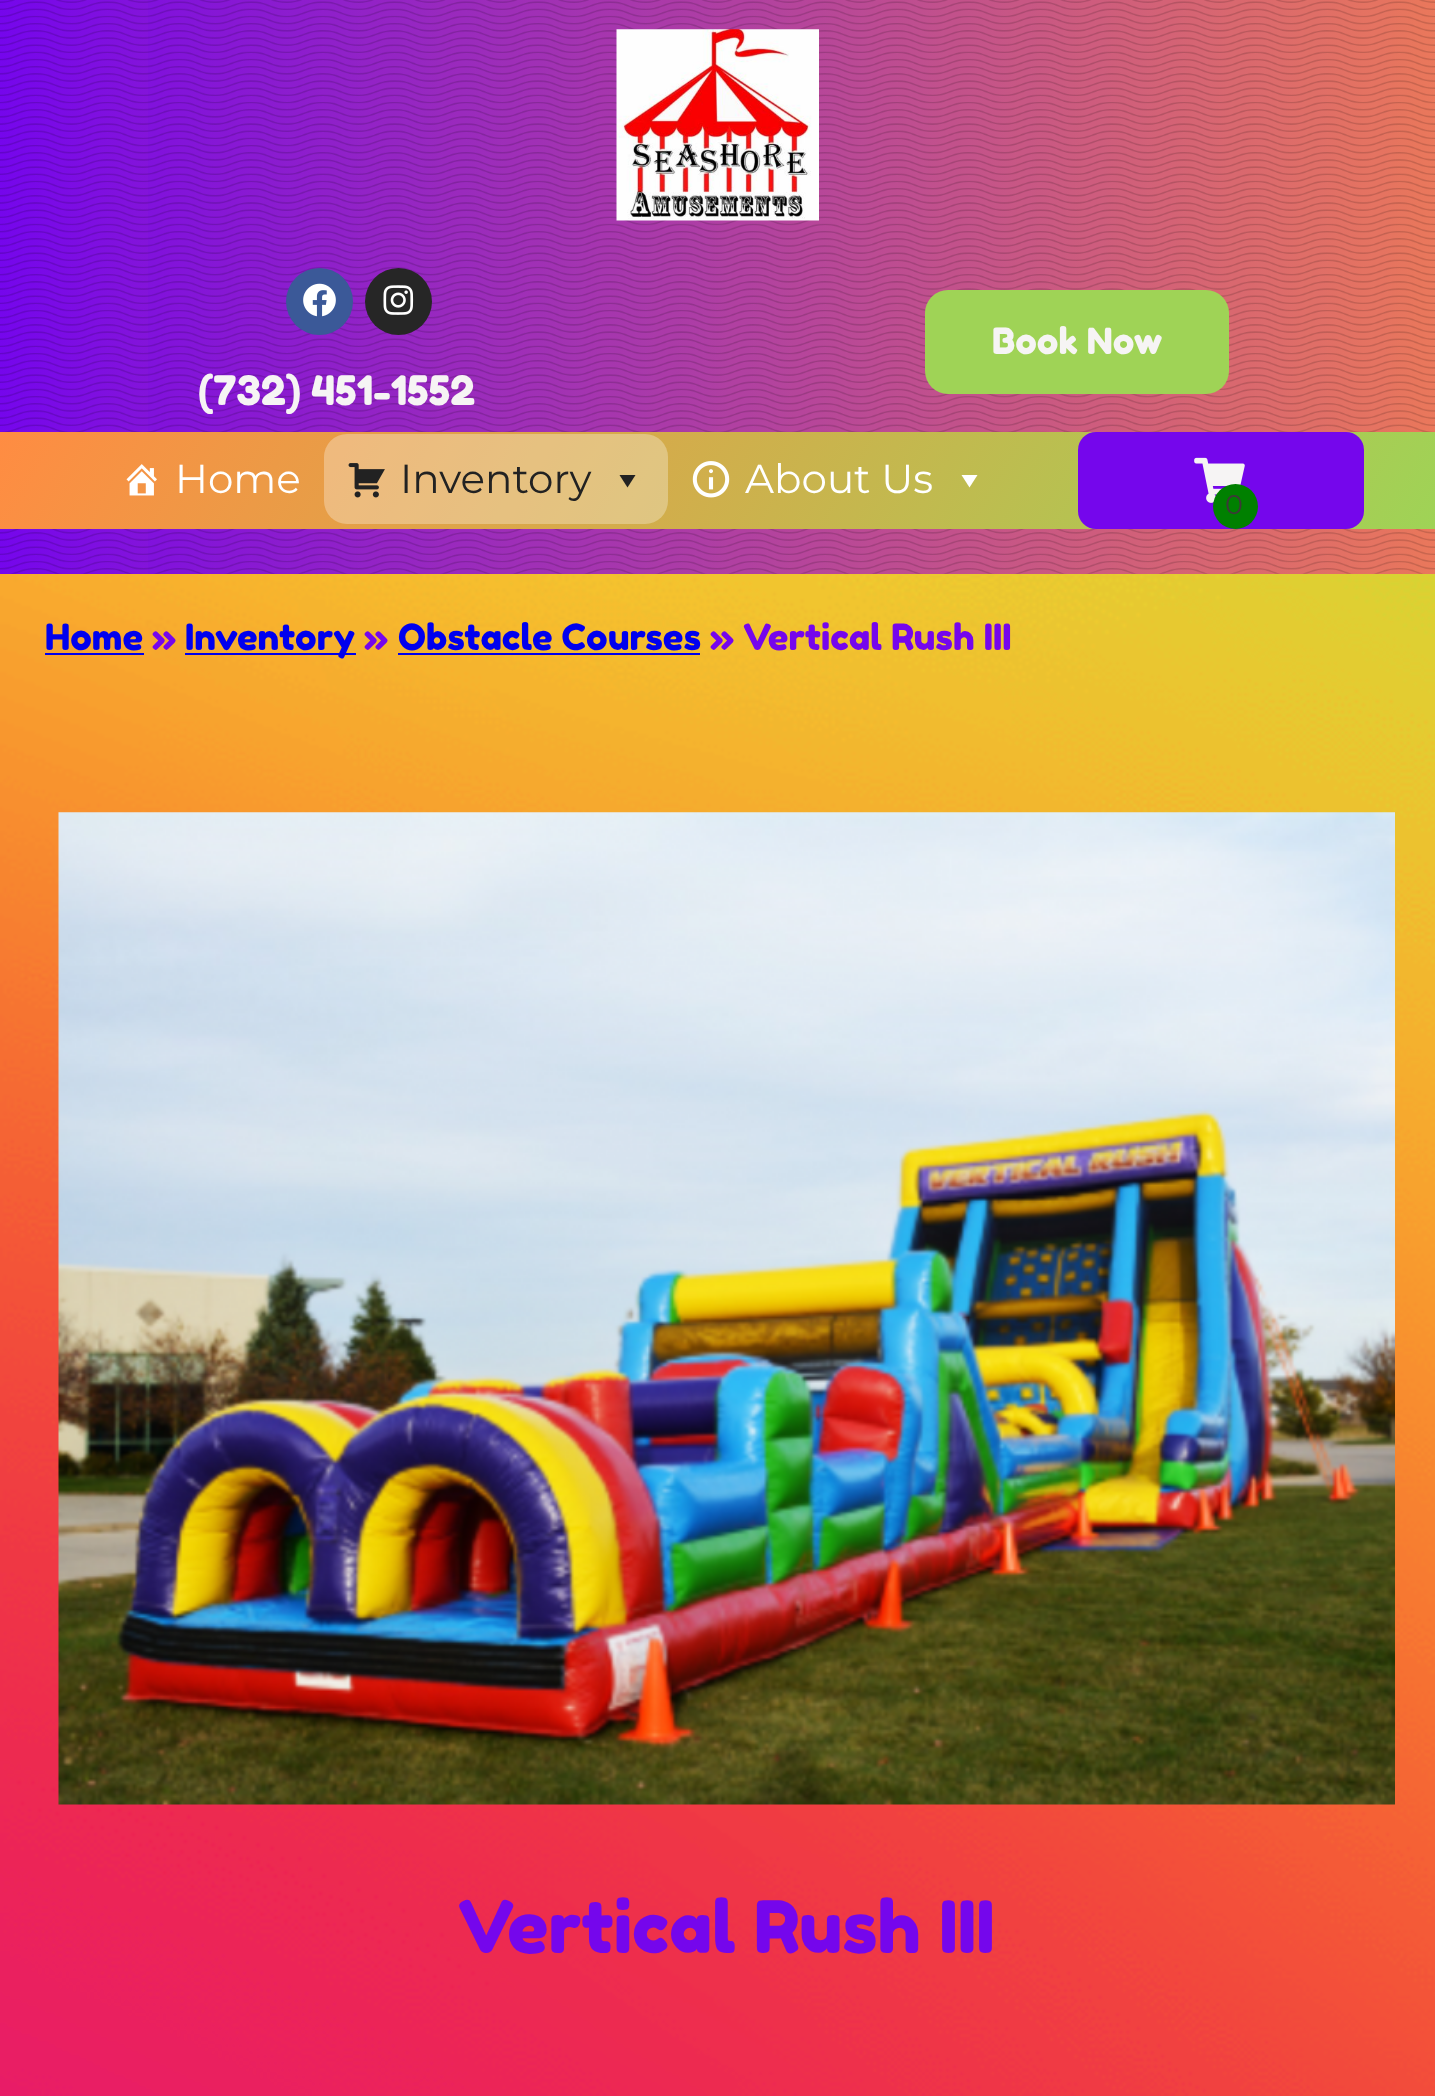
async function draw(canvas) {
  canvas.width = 1435
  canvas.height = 2096
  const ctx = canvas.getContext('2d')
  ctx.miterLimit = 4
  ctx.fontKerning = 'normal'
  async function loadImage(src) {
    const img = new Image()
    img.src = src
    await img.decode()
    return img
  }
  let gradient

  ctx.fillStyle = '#fff'
  ctx.fillRect(0, 0, 1435, 2096)
  ctx.drawImage(await loadImage('image0.png'), 0, 574, 1435, 1522)
  gradient = ctx.createLinearGradient(0, 287, 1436, 287)
  gradient.addColorStop(0, '#7506ec')
  gradient.addColorStop(1, '#ff8c42')
  ctx.fillStyle = gradient
  ctx.fillRect(0, 0, 1435, 574)
  ctx.fillStyle = '#7506ec26'
  ctx.fillRect(148, 0, 1287, 574)
  ctx.drawImage(await loadImage('image1.png'), 0, 0, 1435, 574)
  ctx.drawImage(await loadImage('image2.png'), 616, 29, 203, 192)
  ctx.fillStyle = '#9fd356'
  ctx.beginPath()
  ctx.roundRect(925, 290, 304, 104, 23)
  ctx.fill()
  ctx.font = '36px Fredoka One'
  ctx.fillStyle = '#f6f4f4'
  ctx.fillText('Book Now', 992, 354)
  ctx.fillStyle = '#3b5998'
  ctx.beginPath()
  ctx.arc(319.5, 301.5, 33.5, 0, 2 * Math.PI)
  ctx.fill()
  ctx.drawImage(await loadImage('image3.png'), 303, 283, 33, 34)
  ctx.fillStyle = '#262626'
  ctx.beginPath()
  ctx.arc(398.5, 301.5, 33.5, 0, 2 * Math.PI)
  ctx.fill()
  ctx.drawImage(await loadImage('image4.png'), 383, 285, 31, 30)
  ctx.save()
  ctx.beginPath()
  ctx.rect(0, 367, 639, 47)
  ctx.clip()
  ctx.font = '40.5px Fredoka One'
  ctx.fillStyle = '#f6f4f4'
  ctx.fillText('(732) 451-1552', 198, 405)
  ctx.restore()
  gradient = ctx.createLinearGradient(158, 157, 1277, 803)
  gradient.addColorStop(0, '#ff8c42')
  gradient.addColorStop(1, '#9fd356')
  ctx.fillStyle = gradient
  ctx.fillRect(0, 432, 1435, 97)
  ctx.drawImage(await loadImage('image5.png'), 126, 464, 31, 32)
  ctx.font = '40.5px Montserrat'
  ctx.fillStyle = '#fff'
  ctx.fillText('Home', 175, 493)
  ctx.fillStyle = '#ffffff4d'
  ctx.beginPath()
  ctx.roundRect(324, 434, 344, 90, 23)
  ctx.fill()
  ctx.drawImage(await loadImage('image6.png'), 348, 463, 37, 35)
  ctx.fillStyle = '#222'
  ctx.fillText('Inventory', 400, 493)
  ctx.beginPath()
  ctx.moveTo(635.5, 475)
  ctx.lineTo(627.5, 487.5)
  ctx.lineTo(619.5, 475)
  ctx.closePath()
  ctx.fill()
  ctx.drawImage(await loadImage('image7.png'), 692, 461, 38, 37)
  ctx.fillStyle = '#fff'
  ctx.fillText('About Us', 745, 493)
  ctx.beginPath()
  ctx.moveTo(977.5, 475)
  ctx.lineTo(969.5, 487.5)
  ctx.lineTo(961.5, 475)
  ctx.closePath()
  ctx.fill()
  ctx.fillStyle = '#7506ec'
  ctx.beginPath()
  ctx.roundRect(1078, 432, 286, 97, 18)
  ctx.fill()
  ctx.drawImage(await loadImage('image8.png'), 1194, 457, 51, 46)
  ctx.fillStyle = '#008000'
  ctx.beginPath()
  ctx.arc(1235.5, 506.5, 22.5, 0, 2 * Math.PI)
  ctx.fill()
  ctx.font = '27px Montserrat'
  ctx.fillStyle = '#3e3838'
  ctx.fillText('0', 1225, 514)
  ctx.font = '36px Fredoka One'
  ctx.fillStyle = '#00e'
  ctx.fillText('Home', 45, 650)
  ctx.fillRect(45, 653, 99, 2)
  ctx.fillStyle = '#7506ec'
  ctx.fillText('»', 152, 650)
  ctx.fillStyle = '#00e'
  ctx.fillRect(185, 653, 171, 2)
  ctx.fillText('Inventory', 185, 650)
  ctx.fillStyle = '#7506ec'
  ctx.fillText('»', 364, 650)
  ctx.fillStyle = '#00e'
  ctx.fillText('Obstacle Courses', 398, 650)
  ctx.fillRect(398, 653, 302, 2)
  ctx.fillStyle = '#7506ec'
  ctx.fillText('» Vertical Rush III', 710, 650)
  ctx.drawImage(await loadImage('image9.png'), 58, 812, 1337, 993)
  ctx.font = '72px Fredoka One'
  ctx.fillText('Vertical Rush III', 458, 1953)
}

draw(document.querySelector('canvas'))
